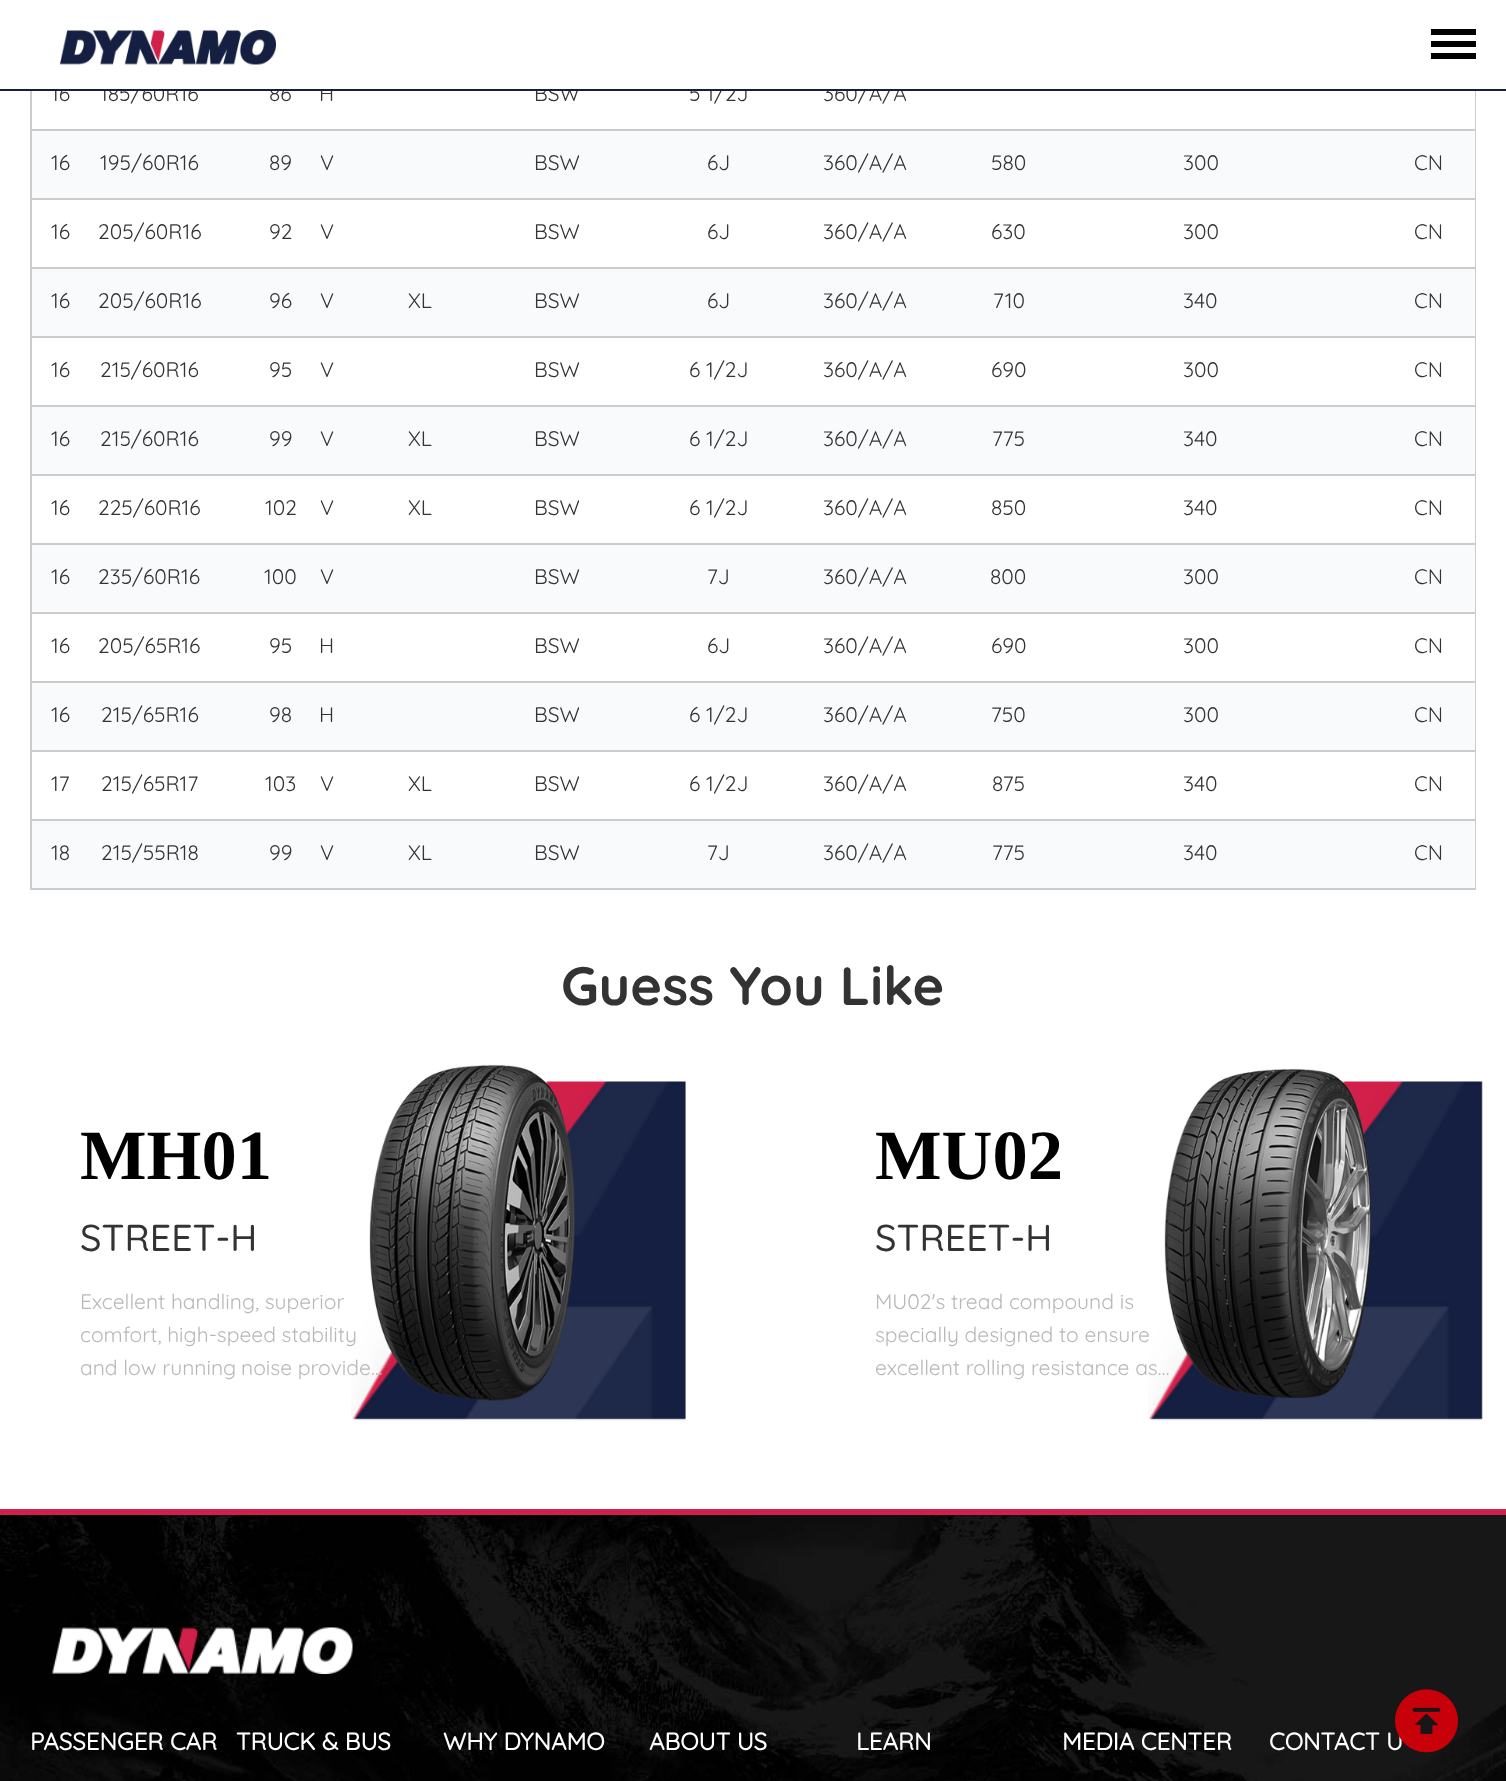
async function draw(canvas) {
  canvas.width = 1506
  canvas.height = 1781
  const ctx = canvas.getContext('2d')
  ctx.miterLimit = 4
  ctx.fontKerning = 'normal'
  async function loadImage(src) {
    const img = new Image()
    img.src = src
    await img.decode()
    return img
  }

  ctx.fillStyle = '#fff'
  ctx.fillRect(0, 0, 1506, 1781)
  ctx.font = '21px Quicksand'
  ctx.fillStyle = '#333'
  ctx.fillText('16', 51, 101)
  ctx.fillText('185/60R16', 100, 101)
  ctx.fillText('86', 269, 101)
  ctx.fillText('H', 319, 101)
  ctx.fillText('BSW', 534, 101)
  ctx.fillText('5 1/2J', 689, 101)
  ctx.fillText('360/A/A', 823, 101)
  ctx.fillStyle = '#fff'
  ctx.fillRect(51, 84, 851, 5)
  ctx.fillStyle = '#151f41'
  ctx.fillRect(0, 89, 1506, 2)
  ctx.drawImage(await loadImage('image0.png'), 60, 30, 216, 35)
  ctx.fillStyle = '#000'
  ctx.fillRect(1431, 29, 45, 6)
  ctx.fillRect(1431, 41, 45, 6)
  ctx.fillRect(1431, 53, 45, 6)
  ctx.fillStyle = '#ccc'
  ctx.fillRect(1475, 91, 1, 799)
  ctx.fillRect(30, 888, 1446, 2)
  ctx.fillRect(30, 91, 2, 799)
  ctx.fillRect(30, 129, 1446, 2)
  ctx.fillStyle = '#f9fafb'
  ctx.fillRect(32, 131, 1443, 67)
  ctx.fillStyle = '#ccc'
  ctx.fillRect(30, 198, 1446, 2)
  ctx.fillStyle = '#333'
  ctx.fillText('16', 51, 170)
  ctx.fillText('195/60R16', 100, 170)
  ctx.fillText('89', 269, 170)
  ctx.fillText('V', 320, 170)
  ctx.fillText('BSW', 534, 170)
  ctx.fillText('6J', 707, 170)
  ctx.fillText('360/A/A', 823, 170)
  ctx.fillText('580', 991, 170)
  ctx.fillText('300', 1183, 170)
  ctx.fillText('CN', 1414, 170)
  ctx.fillStyle = '#ccc'
  ctx.fillRect(30, 267, 1446, 2)
  ctx.fillStyle = '#333'
  ctx.fillText('16', 51, 239)
  ctx.fillText('205/60R16', 98, 239)
  ctx.fillText('92', 269, 239)
  ctx.fillText('V', 320, 239)
  ctx.fillText('BSW', 534, 239)
  ctx.fillText('6J', 707, 239)
  ctx.fillText('360/A/A', 823, 239)
  ctx.fillText('630', 991, 239)
  ctx.fillText('300', 1183, 239)
  ctx.fillText('CN', 1414, 239)
  ctx.fillStyle = '#f9fafb'
  ctx.fillRect(32, 269, 1443, 67)
  ctx.fillStyle = '#ccc'
  ctx.fillRect(30, 336, 1446, 2)
  ctx.fillStyle = '#333'
  ctx.fillText('16', 51, 308)
  ctx.fillText('205/60R16', 98, 308)
  ctx.fillText('96', 269, 308)
  ctx.fillText('V', 320, 308)
  ctx.fillText('XL', 408, 308)
  ctx.fillText('BSW', 534, 308)
  ctx.fillText('6J', 707, 308)
  ctx.fillText('360/A/A', 823, 308)
  ctx.fillText('710', 993, 308)
  ctx.fillText('340', 1183, 308)
  ctx.fillText('CN', 1414, 308)
  ctx.fillStyle = '#ccc'
  ctx.fillRect(30, 405, 1446, 2)
  ctx.fillStyle = '#333'
  ctx.fillText('16', 51, 377)
  ctx.fillText('215/60R16', 100, 377)
  ctx.fillText('95', 269, 377)
  ctx.fillText('V', 320, 377)
  ctx.fillText('BSW', 534, 377)
  ctx.fillText('6 1/2J', 689, 377)
  ctx.fillText('360/A/A', 823, 377)
  ctx.fillText('690', 991, 377)
  ctx.fillText('300', 1183, 377)
  ctx.fillText('CN', 1414, 377)
  ctx.fillStyle = '#f9fafb'
  ctx.fillRect(32, 407, 1443, 67)
  ctx.fillStyle = '#ccc'
  ctx.fillRect(30, 474, 1446, 2)
  ctx.fillStyle = '#333'
  ctx.fillText('16', 51, 446)
  ctx.fillText('215/60R16', 100, 446)
  ctx.fillText('99', 269, 446)
  ctx.fillText('V', 320, 446)
  ctx.fillText('XL', 408, 446)
  ctx.fillText('BSW', 534, 446)
  ctx.fillText('6 1/2J', 689, 446)
  ctx.fillText('360/A/A', 823, 446)
  ctx.fillText('775', 992, 446)
  ctx.fillText('340', 1183, 446)
  ctx.fillText('CN', 1414, 446)
  ctx.fillStyle = '#ccc'
  ctx.fillRect(30, 543, 1446, 2)
  ctx.fillStyle = '#333'
  ctx.fillText('16', 51, 515)
  ctx.fillText('225/60R16', 98, 515)
  ctx.fillText('102', 265, 515)
  ctx.fillText('V', 320, 515)
  ctx.fillText('XL', 408, 515)
  ctx.fillText('BSW', 534, 515)
  ctx.fillText('6 1/2J', 689, 515)
  ctx.fillText('360/A/A', 823, 515)
  ctx.fillText('850', 991, 515)
  ctx.fillText('340', 1183, 515)
  ctx.fillText('CN', 1414, 515)
  ctx.fillStyle = '#f9fafb'
  ctx.fillRect(32, 545, 1443, 67)
  ctx.fillStyle = '#ccc'
  ctx.fillRect(30, 612, 1446, 2)
  ctx.fillStyle = '#333'
  ctx.fillText('16', 51, 584)
  ctx.fillText('235/60R16', 98, 584)
  ctx.fillText('100', 264, 584)
  ctx.fillText('V', 320, 584)
  ctx.fillText('BSW', 534, 584)
  ctx.fillText('7J', 707, 584)
  ctx.fillText('360/A/A', 823, 584)
  ctx.fillText('800', 990, 584)
  ctx.fillText('300', 1183, 584)
  ctx.fillText('CN', 1414, 584)
  ctx.fillStyle = '#ccc'
  ctx.fillRect(30, 681, 1446, 2)
  ctx.fillStyle = '#333'
  ctx.fillText('16', 51, 653)
  ctx.fillText('205/65R16', 98, 653)
  ctx.fillText('95', 269, 653)
  ctx.fillText('H', 319, 653)
  ctx.fillText('BSW', 534, 653)
  ctx.fillText('6J', 707, 653)
  ctx.fillText('360/A/A', 823, 653)
  ctx.fillText('690', 991, 653)
  ctx.fillText('300', 1183, 653)
  ctx.fillText('CN', 1414, 653)
  ctx.fillStyle = '#f9fafb'
  ctx.fillRect(32, 683, 1443, 67)
  ctx.fillStyle = '#ccc'
  ctx.fillRect(30, 750, 1446, 2)
  ctx.fillStyle = '#333'
  ctx.fillText('16', 51, 722)
  ctx.fillText('215/65R16', 101, 722)
  ctx.fillText('98', 269, 722)
  ctx.fillText('H', 319, 722)
  ctx.fillText('BSW', 534, 722)
  ctx.fillText('6 1/2J', 689, 722)
  ctx.fillText('360/A/A', 823, 722)
  ctx.fillText('750', 991, 722)
  ctx.fillText('300', 1183, 722)
  ctx.fillText('CN', 1414, 722)
  ctx.fillStyle = '#ccc'
  ctx.fillRect(30, 819, 1446, 2)
  ctx.fillStyle = '#333'
  ctx.fillText('17', 51, 791)
  ctx.fillText('215/65R17', 101, 791)
  ctx.fillText('103', 265, 791)
  ctx.fillText('V', 320, 791)
  ctx.fillText('XL', 408, 791)
  ctx.fillText('BSW', 534, 791)
  ctx.fillText('6 1/2J', 689, 791)
  ctx.fillText('360/A/A', 823, 791)
  ctx.fillText('875', 992, 791)
  ctx.fillText('340', 1183, 791)
  ctx.fillText('CN', 1414, 791)
  ctx.fillStyle = '#f9fafb'
  ctx.fillRect(32, 821, 1443, 67)
  ctx.fillStyle = '#333'
  ctx.fillText('18', 51, 860)
  ctx.fillText('215/55R18', 101, 860)
  ctx.fillText('99', 269, 860)
  ctx.fillText('V', 320, 860)
  ctx.fillText('XL', 408, 860)
  ctx.fillText('BSW', 534, 860)
  ctx.fillText('7J', 707, 860)
  ctx.fillText('360/A/A', 823, 860)
  ctx.fillText('775', 992, 860)
  ctx.fillText('340', 1183, 860)
  ctx.fillText('CN', 1414, 860)
  ctx.font = 'bold 54px "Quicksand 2"'
  ctx.fillText('Guess You Like', 561, 1005)
  ctx.drawImage(await loadImage('image2.png'), 351, 1081, 335, 340)
  ctx.font = '21px Quicksand'
  ctx.fillStyle = '#b8b8b8'
  ctx.fillText('noise provide…', 241, 1375)
  ctx.drawImage(await loadImage('image1.png'), 369, 1064, 206, 337)
  ctx.font = 'bold 70.5px Liberation Serif'
  ctx.fillStyle = '#000'
  ctx.fillText('MH01', 80, 1179)
  ctx.font = '500 37.5px Quicksand'
  ctx.fillStyle = '#333'
  ctx.fillText('STREET-H', 80, 1251)
  ctx.font = '21px Quicksand'
  ctx.fillStyle = '#b8b8b8'
  ctx.fillText('Excellent handling, superior', 80, 1309)
  ctx.fillText('comfort, high-speed stability', 80, 1342)
  ctx.fillText('and low running', 80, 1375)
  ctx.drawImage(await loadImage('image4.png'), 1148, 1081, 335, 340)
  ctx.fillText('resistance as…', 1031, 1375)
  ctx.drawImage(await loadImage('image3.png'), 1164, 1068, 207, 330)
  ctx.font = 'bold 70.5px Liberation Serif'
  ctx.fillStyle = '#000'
  ctx.fillText('MU02', 875, 1179)
  ctx.font = '500 37.5px Quicksand'
  ctx.fillStyle = '#333'
  ctx.fillText('STREET-H', 875, 1251)
  ctx.font = '21px Quicksand'
  ctx.fillStyle = '#b8b8b8'
  ctx.fillText('MU02\'s tread compound is', 875, 1309)
  ctx.fillText('specially designed to ensure', 875, 1342)
  ctx.fillText('excellent rolling', 875, 1375)
  ctx.fillStyle = '#d12049'
  ctx.fillRect(0, 1509, 1506, 6)
  ctx.drawImage(await loadImage('image5.png'), 0, 1515, 1506, 266)
  ctx.drawImage(await loadImage('image6.png'), 52, 1627, 301, 47)
  ctx.font = 'bold 24px Quicksand'
  ctx.fillStyle = '#fff'
  ctx.fillText('PASSENGER CAR', 30, 1750)
  ctx.fillText('TRUCK & BUS', 236, 1750)
  ctx.fillText('WHY DYNAMO', 443, 1750)
  ctx.fillText('ABOUT US', 649, 1750)
  ctx.fillText('LEARN', 856, 1750)
  ctx.fillText('MEDIA CENTER', 1062, 1750)
  ctx.fillText('CONTACT U', 1269, 1750)
  ctx.drawImage(await loadImage('image7.png'), 1395, 1689, 63, 64)
}

draw(document.querySelector('canvas'))
